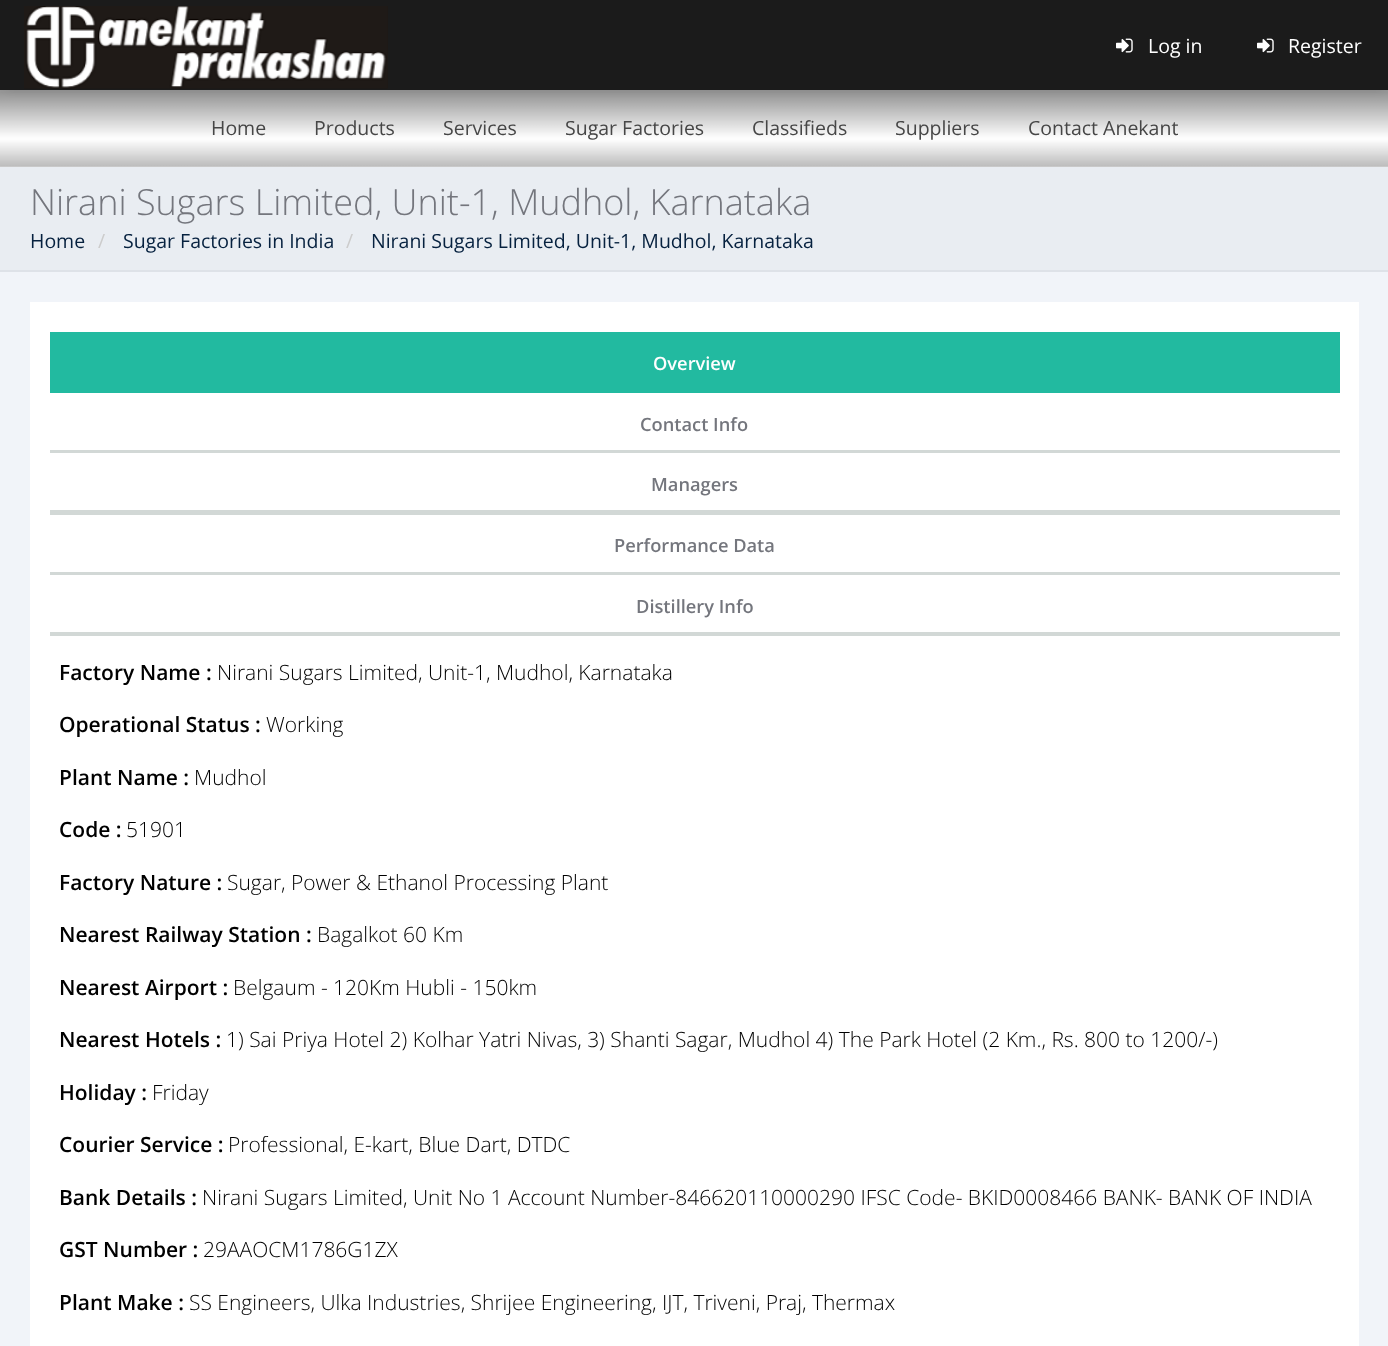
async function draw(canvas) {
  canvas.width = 1388
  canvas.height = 1346
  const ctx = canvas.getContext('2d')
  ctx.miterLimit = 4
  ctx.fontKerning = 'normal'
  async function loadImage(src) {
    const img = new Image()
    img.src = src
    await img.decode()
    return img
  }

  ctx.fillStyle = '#f1f4f9'
  ctx.fillRect(0, 0, 1388, 1346)
  ctx.fillStyle = '#d6d6d6'
  ctx.fillRect(0, 166, 1388, 1)
  ctx.drawImage(await loadImage('image2.png'), 0, 90, 1388, 77)
  ctx.fillStyle = '#0000001a'
  ctx.filter = 'blur(4px)'
  ctx.beginPath()
  ctx.rect(8, 15, 1374, 75)
  ctx.fill()
  ctx.filter = 'none'
  ctx.fillStyle = '#1b1b1b'
  ctx.fillRect(0, 0, 1388, 90)
  ctx.drawImage(await loadImage('image0.png'), 24, 6, 364, 83)
  ctx.drawImage(await loadImage('image1.png'), 1116, 38, 17, 15)
  ctx.font = '19.5px Open Sans'
  ctx.fillStyle = '#fff'
  ctx.fillText('Log in', 1148, 53)
  ctx.drawImage(await loadImage('image1.png'), 1257, 38, 17, 15)
  ctx.fillText('Register', 1288, 53)
  ctx.fillStyle = '#464646'
  ctx.fillText('Home', 211, 135)
  ctx.fillText('Products', 314, 135)
  ctx.fillText('Services', 443, 135)
  ctx.fillText('Sugar Factories', 565, 135)
  ctx.fillText('Classifieds', 752, 135)
  ctx.fillText('Suppliers', 895, 135)
  ctx.fillText('Contact Anekant', 1028, 135)
  ctx.fillStyle = '#e9edf2'
  ctx.fillRect(0, 167, 1388, 103)
  ctx.fillStyle = '#dee2e8'
  ctx.fillRect(0, 270, 1388, 2)
  ctx.font = '300 36px Open Sans'
  ctx.fillStyle = '#74767d'
  ctx.fillText('Nirani Sugars Limited, Unit-1, Mudhol, Karnataka', 30, 215)
  ctx.font = '19.5px Open Sans'
  ctx.fillStyle = '#06213f'
  ctx.fillText('Home', 30, 248)
  ctx.fillStyle = '#ccc'
  ctx.fillText('/', 98, 248)
  ctx.fillStyle = '#06213f'
  ctx.fillText('Sugar Factories in India', 123, 248)
  ctx.fillStyle = '#ccc'
  ctx.fillText('/', 346, 248)
  ctx.fillStyle = '#06213f'
  ctx.fillText('Nirani Sugars Limited, Unit-1, Mudhol, Karnataka', 371, 248)
  ctx.fillStyle = '#fff'
  ctx.fillRect(30, 302, 1329, 1044)
  ctx.fillStyle = '#22baa0'
  ctx.fillRect(50, 332, 1290, 61)
  ctx.font = '600 18.25px Open Sans'
  ctx.fillStyle = '#fff'
  ctx.fillText('Overview', 653, 370)
  ctx.fillStyle = '#74767d'
  ctx.fillText('Contact Info', 640, 431)
  ctx.fillStyle = '#d2d8d6'
  ctx.fillRect(50, 450, 1290, 3)
  ctx.fillStyle = '#74767d'
  ctx.fillText('Managers', 651, 491)
  ctx.fillStyle = '#d2d8d6'
  ctx.fillRect(50, 510, 1290, 5)
  ctx.fillStyle = '#74767d'
  ctx.fillText('Performance Data', 614, 552)
  ctx.fillStyle = '#d2d8d6'
  ctx.fillRect(50, 572, 1290, 3)
  ctx.fillStyle = '#74767d'
  ctx.fillText('Distillery Info', 636, 613)
  ctx.fillStyle = '#d2d8d6'
  ctx.fillRect(50, 632, 1290, 4)
  ctx.font = '600 21px Open Sans'
  ctx.fillStyle = '#000'
  ctx.fillText('Factory Name :', 59, 680)
  ctx.font = '300 21px Open Sans'
  ctx.fillText('Nirani Sugars Limited, Unit-1, Mudhol, Karnataka', 217, 680)
  ctx.font = '600 21px Open Sans'
  ctx.fillText('Operational Status :', 59, 732)
  ctx.font = '300 21px Open Sans'
  ctx.fillText('Working', 266, 732)
  ctx.font = '600 21px Open Sans'
  ctx.fillText('Plant Name :', 59, 785)
  ctx.font = '300 21px Open Sans'
  ctx.fillText('Mudhol', 194, 785)
  ctx.font = '600 21px Open Sans'
  ctx.fillText('Code :', 59, 837)
  ctx.font = '300 21px Open Sans'
  ctx.fillText('51901', 126, 837)
  ctx.font = '600 21px Open Sans'
  ctx.fillText('Factory Nature :', 59, 890)
  ctx.font = '300 21px Open Sans'
  ctx.fillText('Sugar, Power & Ethanol Processing Plant', 227, 890)
  ctx.font = '600 21px Open Sans'
  ctx.fillText('Nearest Railway Station :', 59, 942)
  ctx.font = '300 21px Open Sans'
  ctx.fillText('Bagalkot 60 Km', 317, 942)
  ctx.font = '600 21px Open Sans'
  ctx.fillText('Nearest Airport :', 59, 995)
  ctx.font = '300 21px Open Sans'
  ctx.fillText('Belgaum - 120Km Hubli - 150km', 233, 995)
  ctx.font = '600 21px Open Sans'
  ctx.fillText('Nearest Hotels :', 59, 1047)
  ctx.font = '300 21px Open Sans'
  ctx.fillText('1) Sai Priya Hotel 2) Kolhar Yatri Nivas, 3) Shanti Sagar, Mudhol 4) The Park Hotel (2 Km., Rs. 800 to 1200/-)', 226, 1047)
  ctx.font = '600 21px Open Sans'
  ctx.fillText('Holiday :', 59, 1100)
  ctx.font = '300 21px Open Sans'
  ctx.fillText('Friday', 152, 1100)
  ctx.font = '600 21px Open Sans'
  ctx.fillText('Courier Service :', 59, 1152)
  ctx.font = '300 21px Open Sans'
  ctx.fillText('Professional, E-kart, Blue Dart, DTDC', 228, 1152)
  ctx.font = '600 21px Open Sans'
  ctx.fillText('Bank Details :', 59, 1205)
  ctx.font = '300 21px Open Sans'
  ctx.fillText('Nirani Sugars Limited, Unit No 1 Account Number-846620110000290 IFSC Code- BKID0008466 BANK- BANK OF INDIA', 202, 1205)
  ctx.font = '600 21px Open Sans'
  ctx.fillText('GST Number :', 59, 1257)
  ctx.font = '300 21px Open Sans'
  ctx.fillText('29AAOCM1786G1ZX', 203, 1257)
  ctx.font = '600 21px Open Sans'
  ctx.fillText('Plant Make :', 59, 1310)
  ctx.font = '300 21px Open Sans'
  ctx.fillText('SS Engineers, Ulka Industries, Shrijee Engineering, IJT, Triveni, Praj, Thermax', 189, 1310)
}

draw(document.querySelector('canvas'))
